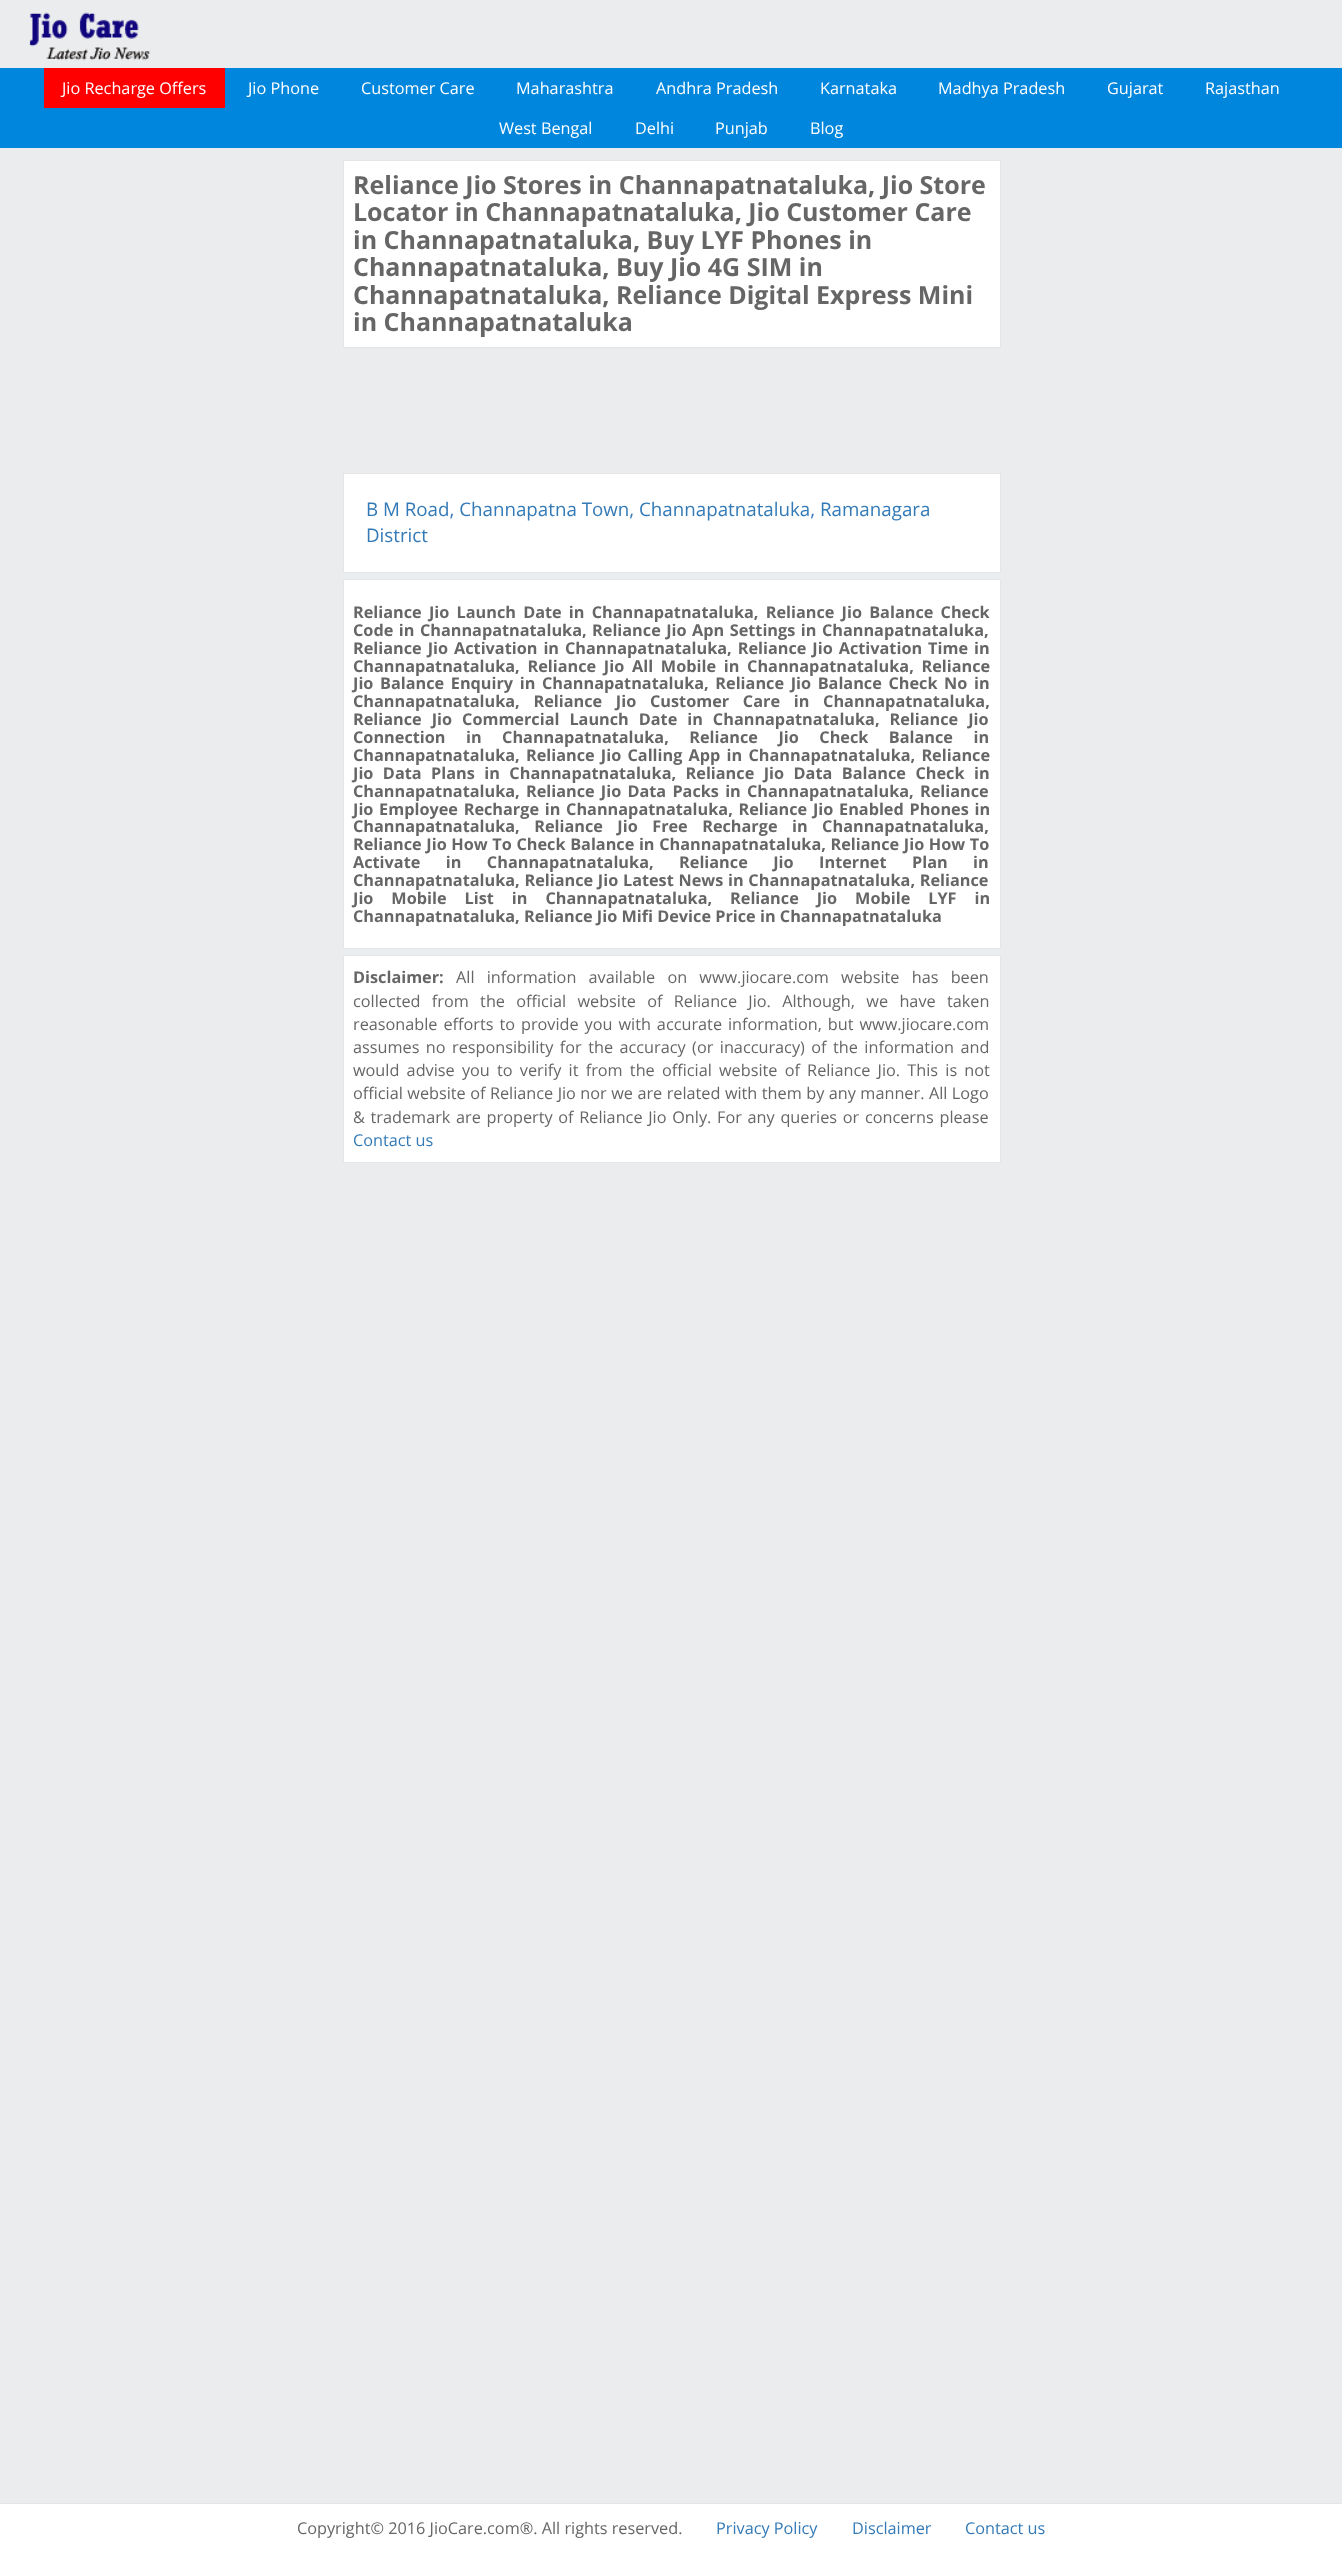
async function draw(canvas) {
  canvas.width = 1342
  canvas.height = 2552
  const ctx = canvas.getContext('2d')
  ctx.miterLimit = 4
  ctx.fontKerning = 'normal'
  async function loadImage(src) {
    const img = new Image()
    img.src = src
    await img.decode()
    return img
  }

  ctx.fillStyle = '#ebeced'
  ctx.fillRect(0, 0, 1342, 2552)
  ctx.drawImage(await loadImage('image0.png'), 29, 12, 122, 49)
  ctx.fillStyle = '#0086dc'
  ctx.fillRect(0, 68, 1342, 80)
  ctx.fillStyle = '#f00'
  ctx.fillRect(44, 68, 181, 40)
  ctx.font = '16.25px Open Sans'
  ctx.fillStyle = '#fff'
  ctx.fillText('Jio Recharge Offers', 62, 94)
  ctx.fillText('Jio Phone', 248, 94)
  ctx.fillText('Customer Care', 361, 94)
  ctx.fillText('Maharashtra', 516, 94)
  ctx.fillText('Andhra Pradesh', 656, 94)
  ctx.fillText('Karnataka', 820, 94)
  ctx.fillText('Madhya Pradesh', 938, 94)
  ctx.fillText('Gujarat', 1107, 94)
  ctx.fillText('Rajasthan', 1205, 94)
  ctx.fillText('West Bengal', 499, 134)
  ctx.fillText('Delhi', 635, 134)
  ctx.fillText('Punjab', 715, 134)
  ctx.fillText('Blog', 810, 134)
  ctx.beginPath()
  ctx.rect(343.5, 160.5, 657, 187)
  ctx.fill()
  ctx.strokeStyle = '#e4e5e7'
  ctx.stroke()
  ctx.font = 'bold 25px Open Sans'
  ctx.fillStyle = '#666'
  ctx.fillText('Reliance Jio Stores in Channapatnataluka, Jio Store', 353, 194)
  ctx.fillText('Locator in Channapatnataluka, Jio Customer Care', 353, 221)
  ctx.fillText('in Channapatnataluka, Buy LYF Phones in', 353, 249)
  ctx.fillText('Channapatnataluka, Buy Jio 4G SIM in', 353, 276)
  ctx.fillText('Channapatnataluka, Reliance Digital Express Mini', 353, 304)
  ctx.fillText('in Channapatnataluka', 353, 331)
  ctx.fillStyle = '#fff'
  ctx.beginPath()
  ctx.rect(343.5, 473.5, 657, 99)
  ctx.fill()
  ctx.stroke()
  ctx.font = '18.75px Open Sans'
  ctx.fillStyle = '#337ab7'
  ctx.fillText('B M Road, Channapatna Town, Channapatnataluka, Ramanagara', 366, 516)
  ctx.fillText('District', 366, 542)
  ctx.fillStyle = '#fff'
  ctx.beginPath()
  ctx.rect(343.5, 579.5, 657, 369)
  ctx.fill()
  ctx.stroke()
  ctx.wordSpacing = '3px'
  ctx.font = 'bold 16.25px Open Sans'
  ctx.fillStyle = '#666'
  ctx.fillText('Reliance Jio Launch Date in Channapatnataluka, Reliance Jio Balance Check', 353, 618)
  ctx.wordSpacing = '1.25px'
  ctx.fillText('Code in Channapatnataluka, Reliance Jio Apn Settings in Channapatnataluka,', 353, 636)
  ctx.wordSpacing = '1.75px'
  ctx.fillText('Reliance Jio Activation in Channapatnataluka, Reliance Jio Activation Time in', 353, 654)
  ctx.wordSpacing = '3.5px'
  ctx.fillText('Channapatnataluka, Reliance Jio All Mobile in Channapatnataluka, Reliance', 353, 672)
  ctx.wordSpacing = '2.4px'
  ctx.fillText('Jio Balance Enquiry in Channapatnataluka, Reliance Jio Balance Check No in', 353, 689)
  ctx.wordSpacing = '9.5px'
  ctx.fillText('Channapatnataluka, Reliance Jio Customer Care in Channapatnataluka,', 353, 707)
  ctx.wordSpacing = '5.75px'
  ctx.fillText('Reliance Jio Commercial Launch Date in Channapatnataluka, Reliance Jio', 353, 725)
  ctx.wordSpacing = '16.25px'
  ctx.fillText('Connection in Channapatnataluka, Reliance Jio Check Balance in', 353, 743)
  ctx.wordSpacing = '2px'
  ctx.fillText('Channapatnataluka, Reliance Jio Calling App in Channapatnataluka, Reliance', 353, 761)
  ctx.wordSpacing = '5.25px'
  ctx.fillText('Jio Data Plans in Channapatnataluka, Reliance Jio Data Balance Check in', 353, 779)
  ctx.wordSpacing = '2px'
  ctx.fillText('Channapatnataluka, Reliance Jio Data Packs in Channapatnataluka, Reliance', 353, 797)
  ctx.wordSpacing = '1.5px'
  ctx.fillText('Jio Employee Recharge in Channapatnataluka, Reliance Jio Enabled Phones in', 353, 815)
  ctx.wordSpacing = '10.25px'
  ctx.fillText('Channapatnataluka, Reliance Jio Free Recharge in Channapatnataluka,', 353, 832)
  ctx.wordSpacing = '0.4px'
  ctx.fillText('Reliance Jio How To Check Balance in Channapatnataluka, Reliance Jio How To', 353, 850)
  ctx.wordSpacing = '21.25px'
  ctx.fillText('Activate in Channapatnataluka, Reliance Jio Internet Plan in', 353, 868)
  ctx.wordSpacing = '0.5px'
  ctx.fillText('Channapatnataluka, Reliance Jio Latest News in Channapatnataluka, Reliance', 353, 886)
  ctx.wordSpacing = '13.75px'
  ctx.fillText('Jio Mobile List in Channapatnataluka, Reliance Jio Mobile LYF in', 353, 904)
  ctx.wordSpacing = '0px'
  ctx.fillText('Channapatnataluka, Reliance Jio Mifi Device Price in Channapatnataluka', 353, 922)
  ctx.fillStyle = '#fff'
  ctx.beginPath()
  ctx.rect(343.5, 955.5, 657, 207)
  ctx.fill()
  ctx.stroke()
  ctx.fillStyle = '#666'
  ctx.fillText('Disclaimer:', 353, 983)
  ctx.wordSpacing = '8px'
  ctx.font = '16.25px Open Sans'
  ctx.fillText('All information available on www.jiocare.com website has been', 456, 983)
  ctx.wordSpacing = '7.1px'
  ctx.fillText('collected from the official website of Reliance Jio. Although, we have taken', 353, 1007)
  ctx.wordSpacing = '1.75px'
  ctx.fillText('reasonable efforts to provide you with accurate information, but www.jiocare.com', 353, 1030)
  ctx.wordSpacing = '2.25px'
  ctx.fillText('assumes no responsibility for the accuracy (or inaccuracy) of the information and', 353, 1053)
  ctx.wordSpacing = '3px'
  ctx.fillText('would advise you to verify it from the official website of Reliance Jio. This is not', 353, 1076)
  ctx.wordSpacing = '0.25px'
  ctx.fillText('official website of Reliance Jio nor we are related with them by any manner. All Logo', 353, 1099)
  ctx.wordSpacing = '1.5px'
  ctx.fillText('& trademark are property of Reliance Jio Only. For any queries or concerns please', 353, 1123)
  ctx.wordSpacing = '0px'
  ctx.fillStyle = '#337ab7'
  ctx.fillText('Contact us', 353, 1146)
  ctx.fillStyle = '#fff'
  ctx.fillRect(0, 2504, 1342, 48)
  ctx.fillStyle = '#e4e5e7'
  ctx.fillRect(0, 2503, 1342, 1)
  ctx.fillStyle = '#666'
  ctx.fillText('Copyright© 2016 JioCare.com®. All rights reserved.', 297, 2534)
  ctx.fillStyle = '#337ab7'
  ctx.fillText('Privacy Policy', 716, 2534)
  ctx.fillText('Disclaimer', 852, 2534)
  ctx.fillText('Contact us', 965, 2534)
}

draw(document.querySelector('canvas'))
